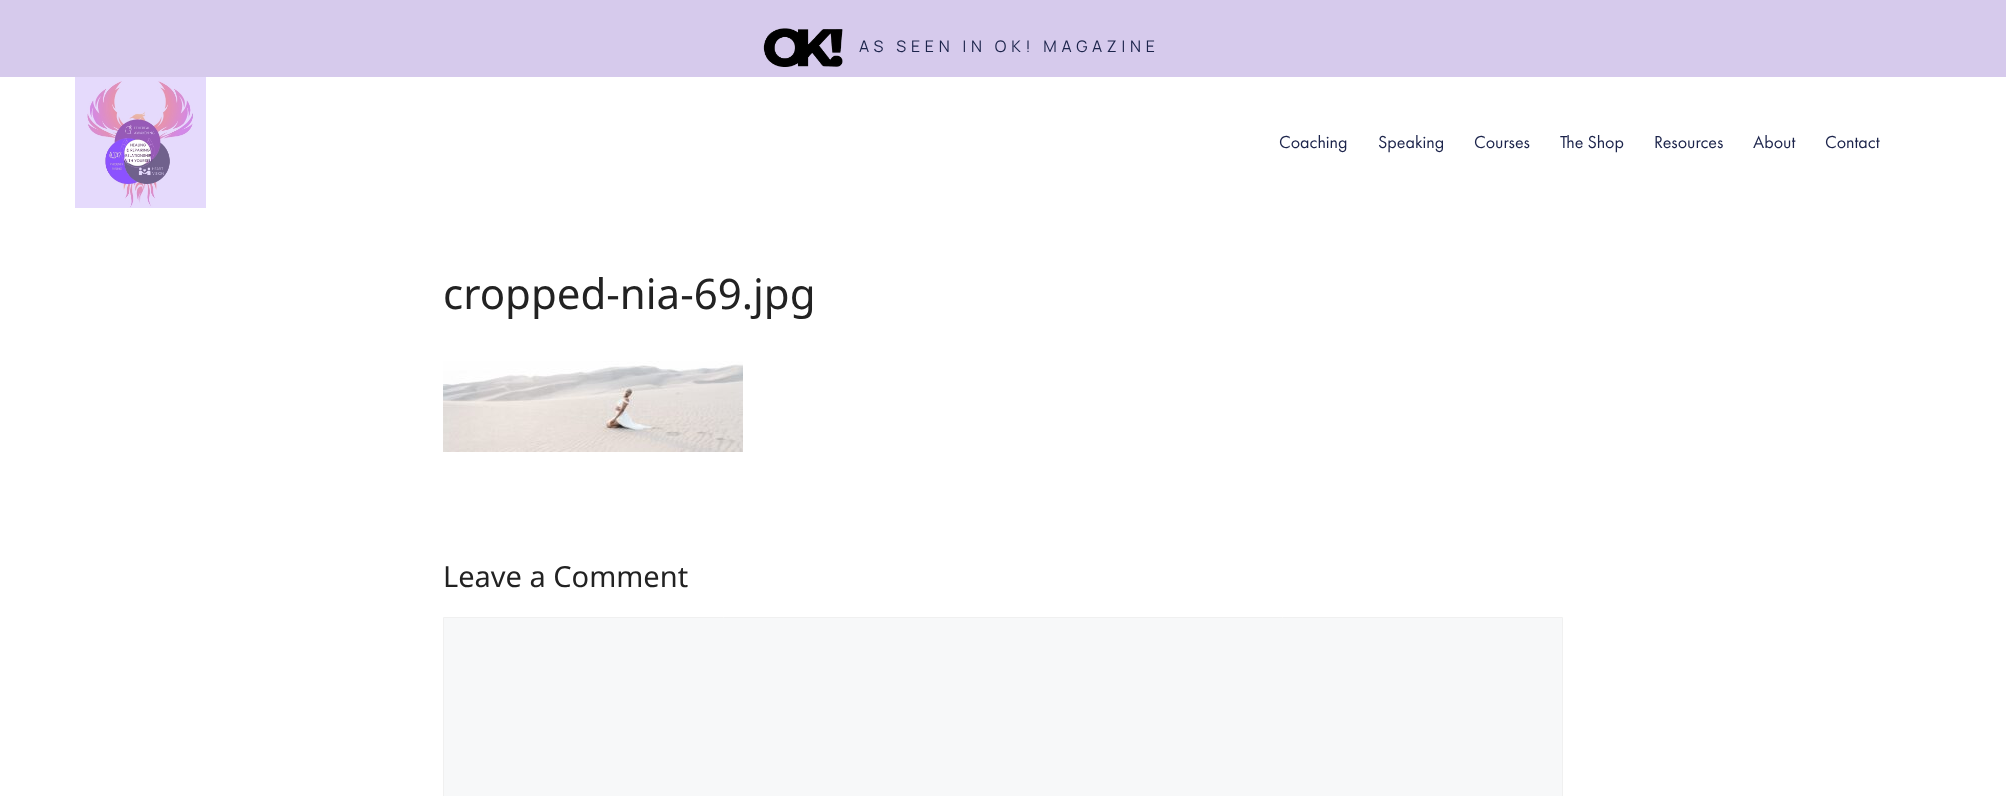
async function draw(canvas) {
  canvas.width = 2006
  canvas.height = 796
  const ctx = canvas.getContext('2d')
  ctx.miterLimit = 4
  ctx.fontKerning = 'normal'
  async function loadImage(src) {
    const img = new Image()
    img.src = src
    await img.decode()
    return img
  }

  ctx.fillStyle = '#fff'
  ctx.fillRect(0, 0, 2006, 796)
  ctx.fillStyle = '#d6caec'
  ctx.fillRect(0, 0, 2006, 77)
  ctx.drawImage(await loadImage('image0.png'), 763, 28, 80, 39)
  ctx.letterSpacing = '4.8px'
  ctx.font = '16px Manrope'
  ctx.fillStyle = '#1c244b'
  ctx.fillText('AS SEEN IN OK! MAGAZINE', 859, 52)
  ctx.drawImage(await loadImage('image1.png'), 75, 77, 131, 131)
  ctx.letterSpacing = '0px'
  ctx.font = '18px Futura PT'
  ctx.fillText('Coaching', 1279, 148)
  ctx.fillText('Speaking', 1378, 148)
  ctx.fillText('Courses', 1474, 148)
  ctx.fillText('The Shop', 1560, 148)
  ctx.fillText('Resources', 1654, 148)
  ctx.fillText('About', 1753, 148)
  ctx.fillText('Contact', 1825, 148)
  ctx.font = '42px Noto Sans'
  ctx.fillStyle = '#222'
  ctx.fillText('cropped-nia-69.jpg', 443, 309)
  ctx.drawImage(await loadImage('image2.png'), 443, 361, 300, 91)
  ctx.font = '29px Noto Sans'
  ctx.fillText('Leave a Comment', 443, 587)
  ctx.fillStyle = '#f7f8f9'
  ctx.beginPath()
  ctx.rect(443.5, 617.5, 1119, 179)
  ctx.fill()
  ctx.strokeStyle = '#f0f0f0'
  ctx.stroke()
}

draw(document.querySelector('canvas'))
